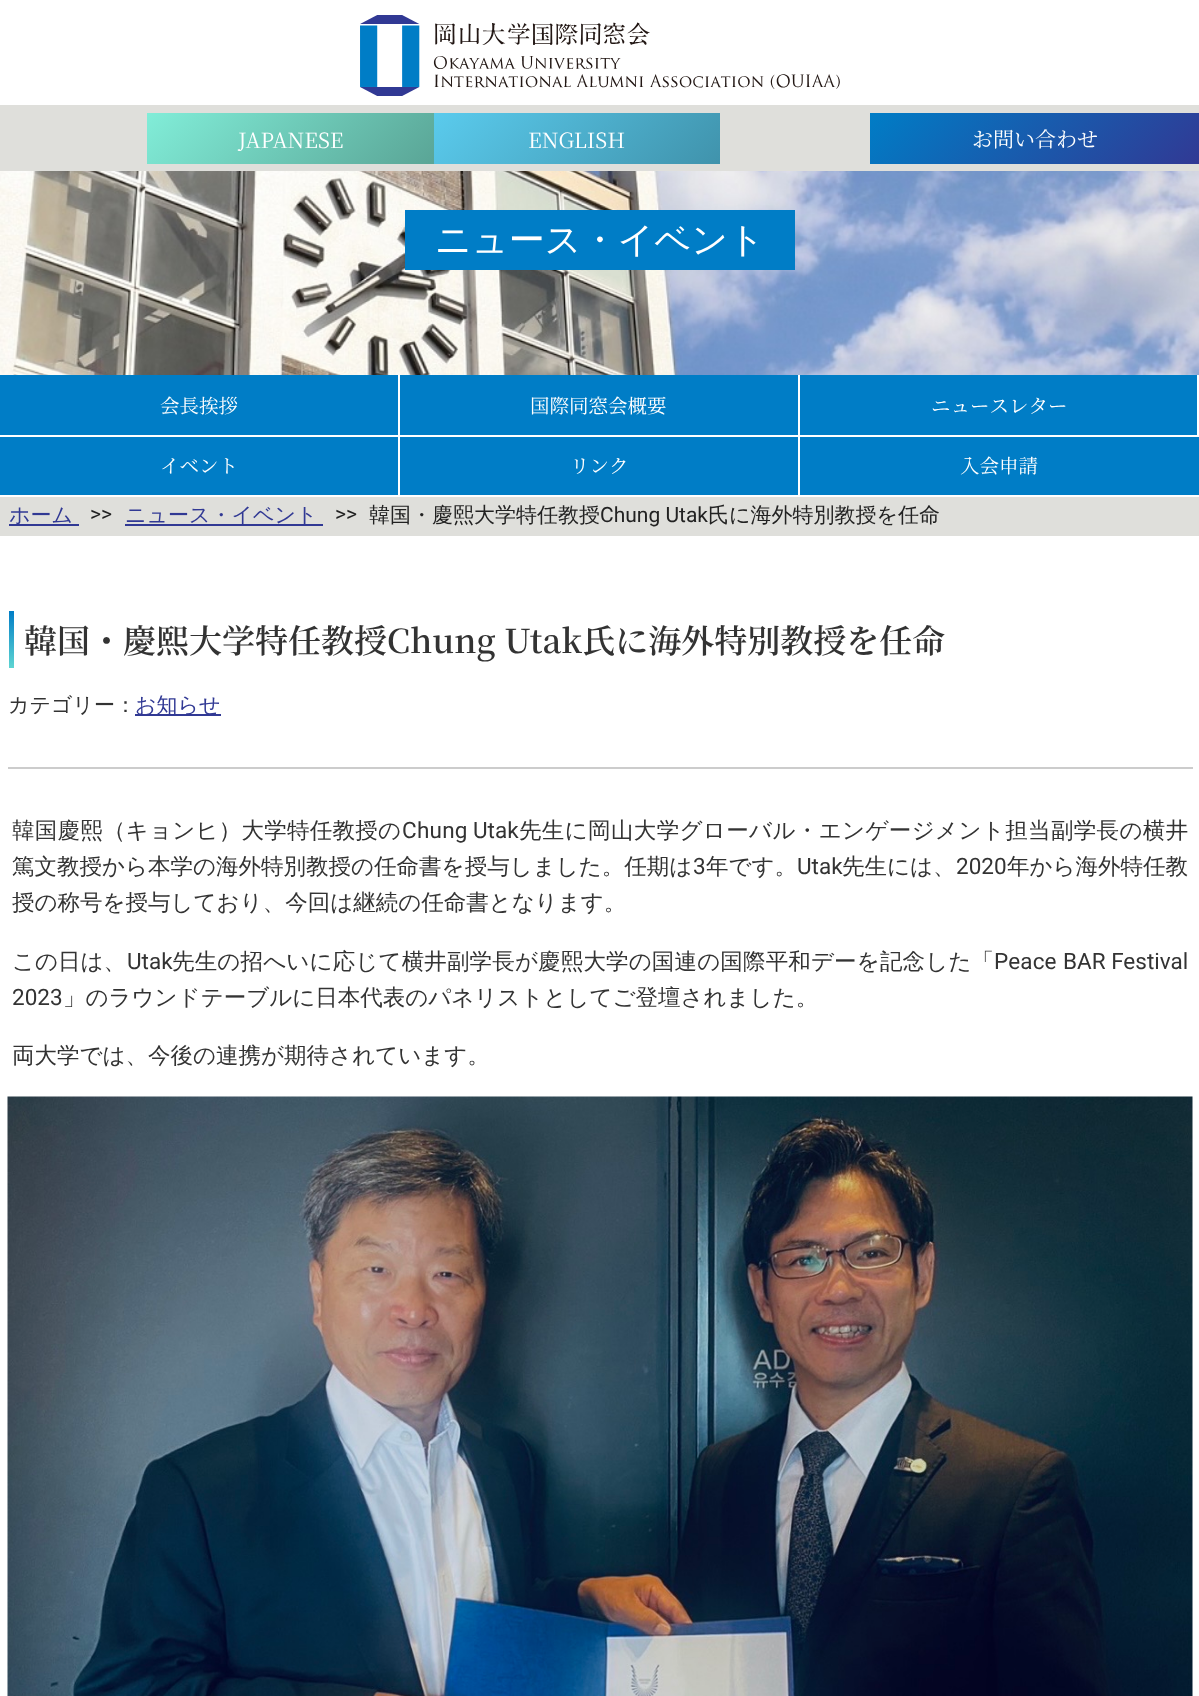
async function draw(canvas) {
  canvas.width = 1199
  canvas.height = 1696
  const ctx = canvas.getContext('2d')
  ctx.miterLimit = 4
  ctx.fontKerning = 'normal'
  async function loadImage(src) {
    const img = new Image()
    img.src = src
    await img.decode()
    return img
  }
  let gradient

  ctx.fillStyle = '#fff'
  ctx.fillRect(0, 0, 1199, 1696)
  ctx.drawImage(await loadImage('image0.png'), 360, 15, 480, 81)
  ctx.fillStyle = '#dfdfdb'
  ctx.fillRect(0, 105, 1199, 66)
  gradient = ctx.createLinearGradient(206, 54, 375, 222)
  gradient.addColorStop(0, '#81edd8')
  gradient.addColorStop(1, '#5aa596')
  ctx.fillStyle = gradient
  ctx.fillRect(147, 113, 287, 51)
  ctx.font = '21px Noto Serif JP'
  ctx.fillStyle = '#fff'
  ctx.fillText('JAPANESE', 238, 148)
  gradient = ctx.createLinearGradient(492, 54, 661, 222)
  gradient.addColorStop(0, '#5acbed')
  gradient.addColorStop(1, '#4093ac')
  ctx.fillStyle = gradient
  ctx.fillRect(434, 113, 286, 51)
  ctx.fillStyle = '#fff'
  ctx.fillText('ENGLISH', 528, 148)
  gradient = ctx.createLinearGradient(940, 43, 1130, 233)
  gradient.addColorStop(0, '#007dc6')
  gradient.addColorStop(1, '#313994')
  ctx.fillStyle = gradient
  ctx.fillRect(870, 113, 329, 51)
  ctx.fillStyle = '#fff'
  ctx.fillText('お問い合わせ', 972, 147)
  ctx.drawImage(await loadImage('image1.png'), 0, 171, 1199, 204)
  ctx.fillStyle = '#007dc6'
  ctx.fillRect(405, 210, 390, 60)
  ctx.font = '500 36px WenQuanYi Zen Hei'
  ctx.fillStyle = '#fff'
  ctx.fillText('ニュース・イベント', 435, 252)
  ctx.fillStyle = '#007dc6'
  ctx.fillRect(0, 375, 1199, 120)
  ctx.fillStyle = '#fff'
  ctx.fillRect(398, 375, 2, 122)
  ctx.fillRect(0, 435, 399, 2)
  ctx.font = '19.5px Noto Serif JP'
  ctx.fillText('会長挨拶', 160, 413)
  ctx.fillRect(798, 375, 2, 122)
  ctx.fillRect(399, 435, 401, 2)
  ctx.fillText('国際同窓会概要', 530, 413)
  ctx.fillRect(1197, 375, 2, 62)
  ctx.fillRect(800, 435, 399, 2)
  ctx.fillText('ニュースレター', 931, 413)
  ctx.fillText('イベント', 160, 473)
  ctx.fillText('リンク', 570, 473)
  ctx.fillText('入会申請', 960, 473)
  ctx.fillStyle = '#dfdfdb'
  ctx.fillRect(0, 497, 1199, 39)
  ctx.fillStyle = '#313994'
  ctx.fillRect(9, 524, 70, 2)
  ctx.font = '500 21px WenQuanYi Zen Hei'
  ctx.fillText('ホーム', 9, 522)
  ctx.font = '21px Roboto'
  ctx.fillStyle = '#222'
  ctx.fillText('>>', 90, 521)
  ctx.fillStyle = '#313994'
  ctx.fillRect(125, 524, 198, 2)
  ctx.font = '500 21px WenQuanYi Zen Hei'
  ctx.fillText('ニュース・イベント', 125, 522)
  ctx.font = '21px Roboto'
  ctx.fillStyle = '#222'
  ctx.fillText('>>', 335, 521)
  ctx.font = '500 21px WenQuanYi Zen Hei'
  ctx.fillText('韓国・慶熙大学特任教授', 369, 522)
  ctx.font = '21px Roboto'
  ctx.fillText('Chung Utak', 600, 522)
  ctx.font = '500 21px WenQuanYi Zen Hei'
  ctx.fillText('氏に海外特別教授を任命', 708, 522)
  gradient = ctx.createLinearGradient(11, 611, 11, 668)
  gradient.addColorStop(0, '#007dc6')
  gradient.addColorStop(1, '#5ed5d2')
  ctx.fillStyle = gradient
  ctx.fillRect(9, 611, 5, 57)
  ctx.font = '600 33px Noto Serif JP'
  ctx.fillStyle = '#333'
  ctx.fillText('韓国・慶熙大学特任教授Chung Utak氏に海外特別教授を任命', 24, 653)
  ctx.font = '500 21px WenQuanYi Zen Hei'
  ctx.fillText('カテゴリー：', 8, 712)
  ctx.fillStyle = '#313994'
  ctx.fillRect(135, 714, 86, 2)
  ctx.fillText('お知らせ', 135, 712)
  ctx.fillStyle = '#ccc'
  ctx.fillRect(8, 767, 1185, 2)
  ctx.letterSpacing = '0.25px'
  ctx.font = '500 22.5px WenQuanYi Zen Hei'
  ctx.fillStyle = '#333'
  ctx.fillText('韓国慶熙（キョンヒ）大学特任教授の', 12, 838)
  ctx.font = '22.5px Roboto'
  ctx.fillText('Chung', 402, 838)
  ctx.letterSpacing = '0px'
  ctx.fillText('Utak', 473, 838)
  ctx.letterSpacing = '0.35px'
  ctx.font = '500 22.5px WenQuanYi Zen Hei'
  ctx.fillText('先生に岡山大学グローバル・エンゲージメント担当副学長の横井', 519, 838)
  ctx.letterSpacing = '0px'
  ctx.fillText('篤文教授から本学の海外特別教授の任命書を授与しました。任期は', 12, 874)
  ctx.font = '22.5px Roboto'
  ctx.fillText('3', 693, 874)
  ctx.font = '500 22.5px WenQuanYi Zen Hei'
  ctx.fillText('年です。', 706, 874)
  ctx.font = '22.5px Roboto'
  ctx.fillText('Utak', 797, 874)
  ctx.font = '500 22.5px WenQuanYi Zen Hei'
  ctx.fillText('先生には、', 842, 874)
  ctx.font = '22.5px Roboto'
  ctx.fillText('2020', 956, 874)
  ctx.font = '500 22.5px WenQuanYi Zen Hei'
  ctx.fillText('年から海外特任教', 1007, 874)
  ctx.fillText('授の称号を授与しており、今回は継続の任命書となります。', 12, 910)
  ctx.fillText('この日は、', 12, 969)
  ctx.font = '22.5px Roboto'
  ctx.fillText('Utak', 127, 969)
  ctx.letterSpacing = '0.15px'
  ctx.font = '500 22.5px WenQuanYi Zen Hei'
  ctx.fillText('先生の招へいに応じて横井副学長が慶熙大学の国連の国際平和デーを記念した「', 172, 969)
  ctx.font = '22.5px Roboto'
  ctx.fillText('Peace', 994, 969)
  ctx.letterSpacing = '0px'
  ctx.fillText('BAR Festival', 1063, 969)
  ctx.fillText('2023', 12, 1005)
  ctx.font = '500 22.5px WenQuanYi Zen Hei'
  ctx.fillText('」のラウンドテーブルに日本代表のパネリストとしてご登壇されました。', 63, 1005)
  ctx.fillText('両大学では、今後の連携が期待されています。', 12, 1063)
  ctx.drawImage(await loadImage('image2.png'), 7, 1096, 1186, 600)
}

draw(document.querySelector('canvas'))
